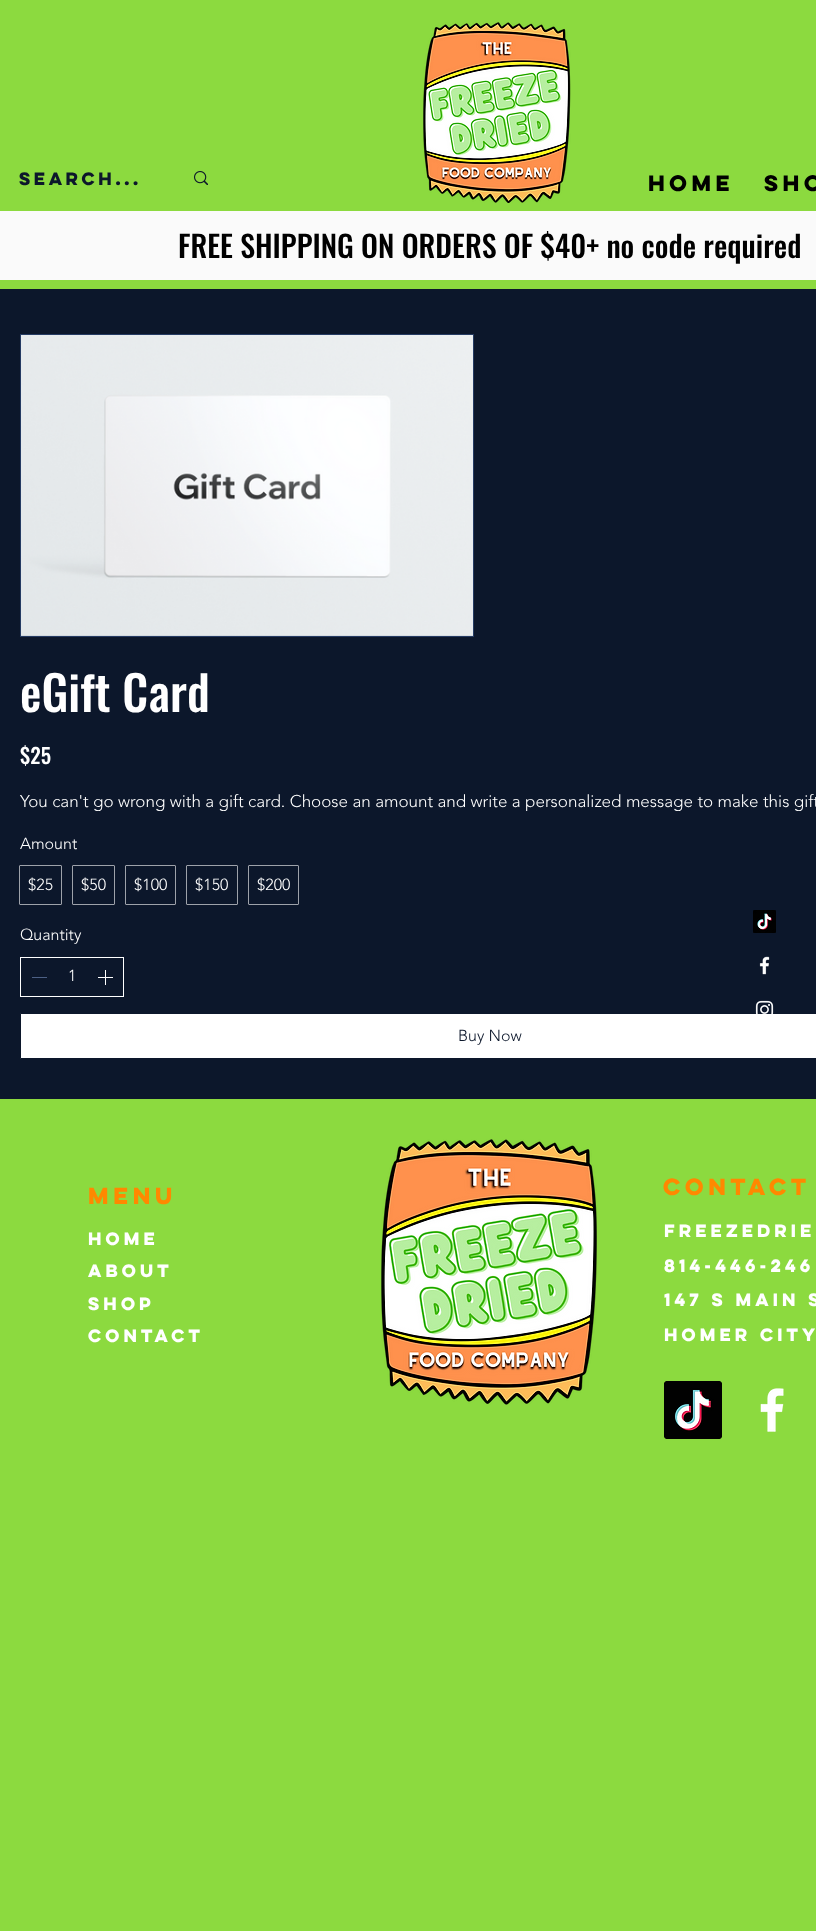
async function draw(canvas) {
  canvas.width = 816
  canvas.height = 1931
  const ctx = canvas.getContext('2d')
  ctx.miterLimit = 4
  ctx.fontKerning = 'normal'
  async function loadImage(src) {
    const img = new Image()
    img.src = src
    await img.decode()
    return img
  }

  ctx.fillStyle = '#8cda3f'
  ctx.fillRect(0, 0, 816, 1931)
  ctx.font = 'bold 16px "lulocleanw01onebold"'
  ctx.fillStyle = '#0c172b'
  ctx.fillText('Search...', 19, 185)
  ctx.drawImage(await loadImage('image0.png'), 194, 171, 14, 14)
  ctx.drawImage(await loadImage('image1.png'), 423, 22, 148, 181)
  ctx.font = 'bold 20px "lulocleanw01onebold"'
  ctx.fillStyle = '#000'
  ctx.fillText('Home', 648, 191)
  ctx.fillText('Sho', 764, 191)
  ctx.fillStyle = '#fafafa'
  ctx.fillRect(0, 211, 816, 69)
  ctx.font = '500 30px Oswald'
  ctx.fillStyle = '#000'
  ctx.fillText('FREE SHIPPING ON ORDERS OF $40+ no code required', 178, 258)
  ctx.fillStyle = '#0c172b'
  ctx.fillRect(0, 289, 816, 810)
  ctx.strokeStyle = '#253b63'
  ctx.strokeRect(20.5, 334.5, 453, 302)
  ctx.drawImage(await loadImage('image2.png'), 21, 335, 452, 301)
  ctx.font = '500 48px Oswald'
  ctx.fillStyle = '#fff'
  ctx.fillText('eGift Card', 20, 712)
  ctx.font = '500 21px Oswald'
  ctx.fillText('$25', 20, 764)
  ctx.font = '300 17px "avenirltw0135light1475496"'
  ctx.fillText('You can\'t go wrong with a gift card. Choose an amount and write a personalized message to make this gift', 20, 807)
  ctx.font = '300 16px "avenirltw0135light1475496"'
  ctx.fillText('Amount', 20, 849)
  ctx.beginPath()
  ctx.roundRect(19.5, 865.5, 42, 39, 0.5)
  ctx.strokeStyle = '#9ea2aa'
  ctx.stroke()
  ctx.fillText('$25', 28, 890)
  ctx.beginPath()
  ctx.roundRect(72.5, 865.5, 42, 39, 0.5)
  ctx.stroke()
  ctx.fillText('$50', 81, 890)
  ctx.beginPath()
  ctx.roundRect(125.5, 865.5, 50, 39, 0.5)
  ctx.stroke()
  ctx.fillText('$100', 134, 890)
  ctx.beginPath()
  ctx.roundRect(186.5, 865.5, 51, 39, 0.5)
  ctx.stroke()
  ctx.fillText('$150', 195, 890)
  ctx.beginPath()
  ctx.roundRect(248.5, 865.5, 50, 39, 0.5)
  ctx.stroke()
  ctx.fillText('$200', 257, 890)
  ctx.fillText('Quantity', 20, 940)
  ctx.strokeStyle = '#fff'
  ctx.strokeRect(20.5, 957.5, 103, 39)
  ctx.fillStyle = '#4c6085'
  ctx.fillRect(32, 977, 15, 1)
  ctx.fillStyle = '#fff'
  ctx.fillText('1', 68, 981)
  ctx.drawImage(await loadImage('image3.png'), 98, 970, 15, 15)
  ctx.beginPath()
  ctx.roundRect(20.5, 1013.5, 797, 45, 0.5)
  ctx.fill()
  ctx.strokeStyle = '#0c172b'
  ctx.stroke()
  ctx.fillStyle = '#0c172b'
  ctx.fillText('Buy Now', 458, 1041)
  ctx.drawImage(await loadImage('image4.png'), 753, 910, 23, 23)
  ctx.drawImage(await loadImage('image5.png'), 759, 956, 11, 19)
  ctx.drawImage(await loadImage('image6.png'), 755, 1000, 19, 14)
  ctx.font = 'bold 21px "lulocleanw01onebold"'
  ctx.fillStyle = '#f80'
  ctx.fillText('Menu', 88, 1204)
  ctx.letterSpacing = '0.5px'
  ctx.font = 'bold 16px "lulocleanw01onebold"'
  ctx.fillStyle = '#fff'
  ctx.fillText('Home', 88, 1245)
  ctx.fillText('About', 88, 1277)
  ctx.fillText('Shop', 88, 1310)
  ctx.fillText('Contact', 88, 1342)
  ctx.drawImage(await loadImage('image7.png'), 381, 1139, 216, 266)
  ctx.letterSpacing = '0px'
  ctx.font = 'bold 21px "lulocleanw01onebold"'
  ctx.fillStyle = '#f80'
  ctx.fillText('Contact', 663, 1195)
  ctx.letterSpacing = '0.5px'
  ctx.font = 'bold 16px "lulocleanw01onebold"'
  ctx.fillStyle = '#fff'
  ctx.fillText('FreezeDrie', 664, 1237)
  ctx.fillText('814-446-246', 664, 1272)
  ctx.fillText('147 S Main S', 664, 1306)
  ctx.fillText('Homer City', 664, 1341)
  ctx.drawImage(await loadImage('image8.png'), 664, 1381, 58, 58)
  ctx.drawImage(await loadImage('image9.png'), 760, 1388, 24, 44)
}

draw(document.querySelector('canvas'))
